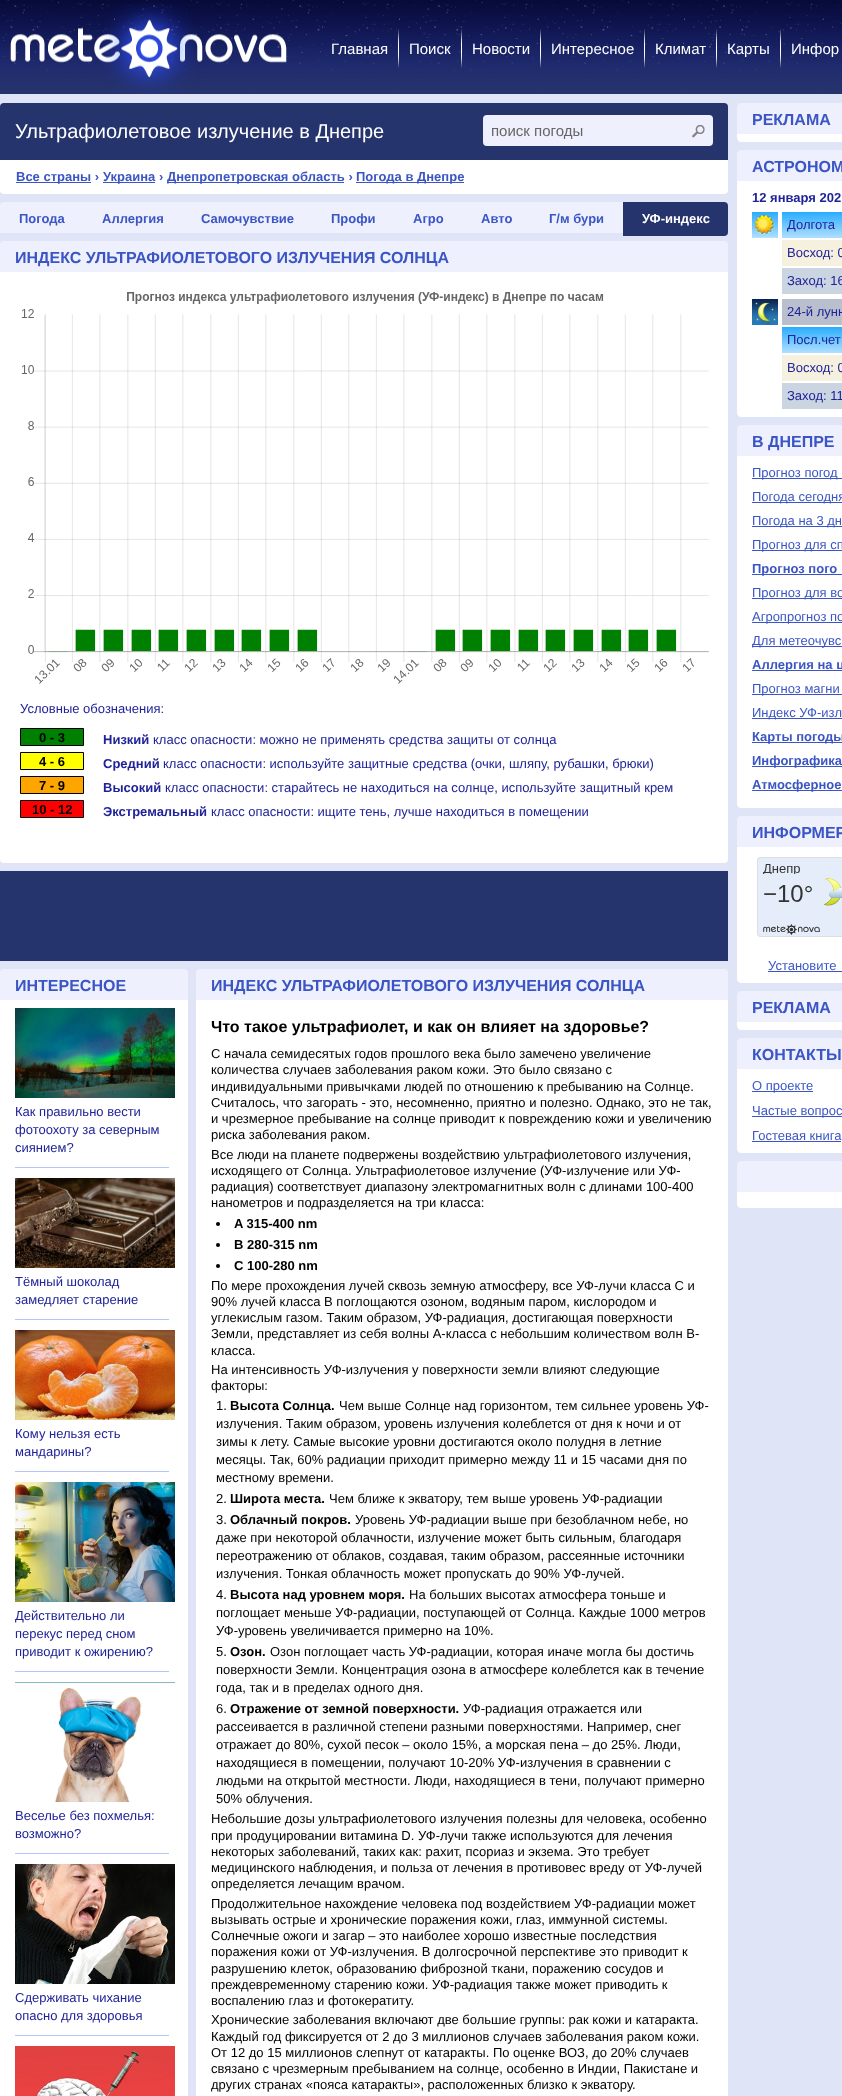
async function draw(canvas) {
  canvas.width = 842
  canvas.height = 2096
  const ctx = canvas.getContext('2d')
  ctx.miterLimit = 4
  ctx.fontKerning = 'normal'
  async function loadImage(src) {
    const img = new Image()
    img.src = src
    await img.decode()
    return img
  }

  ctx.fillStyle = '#dfe5f7'
  ctx.fillRect(0, 0, 842, 2096)
  ctx.drawImage(await loadImage('image0.png'), 0, 0, 842, 94)
  ctx.drawImage(await loadImage('image1.png'), 10, 0, 277, 94)
  ctx.font = '15px Liberation Sans'
  ctx.fillStyle = '#fff'
  ctx.fillText('Главная', 331, 54)
  ctx.drawImage(await loadImage('image2.png'), 398, 29, 1, 39)
  ctx.fillText('Поиск', 409, 54)
  ctx.drawImage(await loadImage('image2.png'), 461, 29, 1, 39)
  ctx.fillText('Новости', 472, 54)
  ctx.drawImage(await loadImage('image2.png'), 540, 29, 1, 39)
  ctx.fillText('Интересное', 551, 54)
  ctx.drawImage(await loadImage('image2.png'), 644, 29, 1, 39)
  ctx.fillText('Климат', 655, 54)
  ctx.drawImage(await loadImage('image2.png'), 716, 29, 1, 39)
  ctx.fillText('Карты', 727, 54)
  ctx.drawImage(await loadImage('image2.png'), 780, 29, 1, 39)
  ctx.fillText('Инфор', 791, 54)
  ctx.fillStyle = '#26346e'
  ctx.beginPath()
  ctx.roundRect(0, 103, 728, 57, [4, 4, 0, 0])
  ctx.fill()
  ctx.font = '20px Liberation Sans'
  ctx.fillStyle = '#fff'
  ctx.fillText('Ультрафиолетовое излучение в Днепре', 15, 138)
  ctx.fillStyle = '#eef1fd'
  ctx.beginPath()
  ctx.roundRect(483, 115, 230, 31, 4)
  ctx.fill()
  ctx.font = '15px Liberation Sans'
  ctx.fillStyle = '#666'
  ctx.fillText('поиск погоды', 491, 136)
  ctx.drawImage(await loadImage('image3.png'), 692, 125, 13, 13)
  ctx.fillStyle = '#fff'
  ctx.fillRect(0, 160, 728, 26)
  ctx.fillStyle = '#3b55c5'
  ctx.fillRect(16, 182, 75, 1)
  ctx.font = 'bold 13px Liberation Sans'
  ctx.fillText('Все страны ›', 16, 181)
  ctx.fillRect(103, 182, 52, 1)
  ctx.fillText('Украина ›', 103, 181)
  ctx.fillRect(167, 182, 177, 1)
  ctx.fillText('Днепропетровская область ›', 167, 181)
  ctx.fillRect(356, 182, 108, 1)
  ctx.fillText('Погода в Днепре', 356, 181)
  ctx.fillStyle = '#fff'
  ctx.beginPath()
  ctx.roundRect(0, 186, 728, 8, [0, 0, 4, 4])
  ctx.fill()
  ctx.fillStyle = '#eef1fd'
  ctx.beginPath()
  ctx.roundRect(0, 202, 728, 31, [4, 4, 0, 0])
  ctx.fill()
  ctx.fillStyle = '#3b55c5'
  ctx.fillText('Погода', 19, 223)
  ctx.fillText('Аллергия', 102, 223)
  ctx.fillText('Самочувствие', 201, 223)
  ctx.fillText('Профи', 331, 223)
  ctx.fillText('Агро', 413, 223)
  ctx.fillText('Авто', 481, 223)
  ctx.fillText('Г/м бури', 549, 223)
  ctx.fillStyle = '#26346e'
  ctx.beginPath()
  ctx.roundRect(623, 202, 105, 34, [0, 4, 4, 0])
  ctx.fill()
  ctx.fillStyle = '#fff'
  ctx.fillText('УФ-индекс', 642, 223)
  ctx.fillStyle = '#eef1fd'
  ctx.beginPath()
  ctx.roundRect(0, 241, 728, 31, [4, 4, 0, 0])
  ctx.fill()
  ctx.font = 'bold 16px Liberation Sans'
  ctx.fillStyle = '#3b55c5'
  ctx.fillText('ИНДЕКС УЛЬТРАФИОЛЕТОВОГО ИЗЛУЧЕНИЯ СОЛНЦА', 15, 263)
  ctx.fillStyle = '#fff'
  ctx.fillRect(0, 272, 728, 583)
  ctx.drawImage(await loadImage('image4.png'), 21, 291, 688, 393)
  ctx.font = '13px Liberation Sans'
  ctx.fillStyle = '#1f2298'
  ctx.fillText('Условные обозначения:', 20, 713)
  ctx.fillStyle = '#008000'
  ctx.beginPath()
  ctx.rect(20.5, 728.5, 63, 17)
  ctx.fill()
  ctx.strokeStyle = '#000'
  ctx.stroke()
  ctx.font = 'bold 13px Liberation Sans'
  ctx.fillStyle = '#000'
  ctx.fillText('0 - 3', 39, 742)
  ctx.fillStyle = '#1f2298'
  ctx.fillText('Низкий', 103, 744)
  ctx.font = '13px Liberation Sans'
  ctx.fillText('класс опасности: можно не применять средства защиты от солнца', 153, 744)
  ctx.fillStyle = '#ff0'
  ctx.beginPath()
  ctx.rect(20.5, 752.5, 63, 17)
  ctx.fill()
  ctx.stroke()
  ctx.font = 'bold 13px Liberation Sans'
  ctx.fillStyle = '#000'
  ctx.fillText('4 - 6', 39, 766)
  ctx.fillStyle = '#1f2298'
  ctx.fillText('Средний', 103, 768)
  ctx.font = '13px Liberation Sans'
  ctx.fillText('класс опасности: используйте защитные средства (очки, шляпу, рубашки, брюки)', 163, 768)
  ctx.fillStyle = '#ffa500'
  ctx.beginPath()
  ctx.rect(20.5, 776.5, 63, 17)
  ctx.fill()
  ctx.stroke()
  ctx.font = 'bold 13px Liberation Sans'
  ctx.fillStyle = '#000'
  ctx.fillText('7 - 9', 39, 790)
  ctx.fillStyle = '#1f2298'
  ctx.fillText('Высокий', 103, 792)
  ctx.font = '13px Liberation Sans'
  ctx.fillText('класс опасности: старайтесь не находиться на солнце, используйте защитный крем', 165, 792)
  ctx.fillStyle = '#f00'
  ctx.beginPath()
  ctx.rect(20.5, 800.5, 63, 17)
  ctx.fill()
  ctx.stroke()
  ctx.font = 'bold 13px Liberation Sans'
  ctx.fillStyle = '#000'
  ctx.fillText('10 - 12', 32, 814)
  ctx.fillStyle = '#1f2298'
  ctx.fillText('Экстремальный', 103, 816)
  ctx.font = '13px Liberation Sans'
  ctx.fillText('класс опасности: ищите тень, лучше находиться в помещении', 211, 816)
  ctx.fillStyle = '#fff'
  ctx.beginPath()
  ctx.roundRect(0, 855, 728, 8, [0, 0, 4, 4])
  ctx.fill()
  ctx.fillStyle = '#26346e'
  ctx.fillRect(0, 871, 728, 90)
  ctx.fillStyle = '#eef1fd'
  ctx.beginPath()
  ctx.roundRect(0, 969, 188, 31, [4, 4, 0, 0])
  ctx.fill()
  ctx.font = 'bold 16px Liberation Sans'
  ctx.fillStyle = '#3b55c5'
  ctx.fillText('ИНТЕРЕСНОЕ', 15, 991)
  ctx.fillStyle = '#fff'
  ctx.fillRect(0, 1000, 188, 1096)
  ctx.drawImage(await loadImage('image5.png'), 15, 1008, 160, 90)
  ctx.font = '13px Liberation Sans'
  ctx.fillStyle = '#1f2298'
  ctx.fillText('Как правильно вести', 15, 1116)
  ctx.fillText('фотоохоту за северным', 15, 1134)
  ctx.fillText('сиянием?', 15, 1152)
  ctx.fillStyle = '#b2c7fd'
  ctx.fillRect(15, 1167, 154, 1)
  ctx.drawImage(await loadImage('image6.png'), 15, 1178, 160, 90)
  ctx.fillStyle = '#1f2298'
  ctx.fillText('Тёмный шоколад', 15, 1286)
  ctx.fillText('замедляет старение', 15, 1304)
  ctx.fillStyle = '#b2c7fd'
  ctx.fillRect(15, 1319, 154, 1)
  ctx.drawImage(await loadImage('image7.png'), 15, 1330, 160, 90)
  ctx.fillStyle = '#1f2298'
  ctx.fillText('Кому нельзя есть', 15, 1438)
  ctx.fillText('мандарины?', 15, 1456)
  ctx.fillStyle = '#b2c7fd'
  ctx.fillRect(15, 1471, 154, 1)
  ctx.drawImage(await loadImage('image8.png'), 15, 1482, 160, 120)
  ctx.fillStyle = '#1f2298'
  ctx.fillText('Действительно ли', 15, 1620)
  ctx.fillText('перекус перед сном', 15, 1638)
  ctx.fillText('приводит к ожирению?', 15, 1656)
  ctx.fillStyle = '#b2c7fd'
  ctx.fillRect(15, 1671, 154, 1)
  ctx.drawImage(await loadImage('image9.png'), 15, 1682, 160, 120)
  ctx.fillStyle = '#1f2298'
  ctx.fillText('Веселье без похмелья:', 15, 1820)
  ctx.fillText('возможно?', 15, 1838)
  ctx.fillStyle = '#b2c7fd'
  ctx.fillRect(15, 1853, 154, 1)
  ctx.drawImage(await loadImage('image10.png'), 15, 1864, 160, 120)
  ctx.fillStyle = '#1f2298'
  ctx.fillText('Сдерживать чихание', 15, 2002)
  ctx.fillText('опасно для здоровья', 15, 2020)
  ctx.fillStyle = '#b2c7fd'
  ctx.fillRect(15, 2035, 154, 1)
  ctx.drawImage(await loadImage('image11.png'), 15, 2046, 160, 50)
  ctx.fillStyle = '#eef1fd'
  ctx.beginPath()
  ctx.roundRect(196, 969, 532, 31, [4, 4, 0, 0])
  ctx.fill()
  ctx.font = 'bold 16px Liberation Sans'
  ctx.fillStyle = '#3b55c5'
  ctx.fillText('ИНДЕКС УЛЬТРАФИОЛЕТОВОГО ИЗЛУЧЕНИЯ СОЛНЦА', 211, 991)
  ctx.fillStyle = '#fff'
  ctx.fillRect(196, 1000, 532, 1096)
  ctx.fillStyle = '#000'
  ctx.fillText('Что такое ультрафиолет, и как он влияет на здоровье?', 211, 1032)
  ctx.font = '13px Liberation Sans'
  ctx.fillText('С начала семидесятых годов прошлого века было замечено увеличение', 211, 1058)
  ctx.fillText('количества случаев заболевания раком кожи. Это было связано с', 211, 1074)
  ctx.fillText('индивидуальными привычками людей по отношению к пребыванию на Солнце.', 211, 1091)
  ctx.fillText('Считалось, что загорать - это, несомненно, приятно и полезно. Однако, это не так,', 211, 1107)
  ctx.fillText('и чрезмерное пребывание на солнце приводит к повреждению кожи и увеличению', 211, 1123)
  ctx.fillText('риска заболевания раком.', 211, 1139)
  ctx.fillText('Все люди на планете подвержены воздействию ультрафиолетового излучения,', 211, 1159)
  ctx.fillText('исходящего от Солнца. Ультрафиолетовое излучение (УФ-излучение или УФ-', 211, 1175)
  ctx.fillText('радиация) соответствует диапазону электромагнитных волн с длинами 100-400', 211, 1191)
  ctx.fillText('нанометров и подразделяется на три класса:', 211, 1207)
  ctx.beginPath()
  ctx.arc(218, 1224, 2, 0, 2 * Math.PI)
  ctx.fill()
  ctx.font = 'bold 13px Liberation Sans'
  ctx.fillText('A 315-400 nm', 234, 1228)
  ctx.beginPath()
  ctx.arc(218, 1245, 2, 0, 2 * Math.PI)
  ctx.fill()
  ctx.fillText('B 280-315 nm', 234, 1249)
  ctx.beginPath()
  ctx.arc(218, 1266, 2, 0, 2 * Math.PI)
  ctx.fill()
  ctx.fillText('C 100-280 nm', 234, 1270)
  ctx.font = '13px Liberation Sans'
  ctx.fillText('По мере прохождения лучей сквозь земную атмосферу, все УФ-лучи класса C и', 211, 1290)
  ctx.fillText('90% лучей класса B поглощаются озоном, водяным паром, кислородом и', 211, 1306)
  ctx.fillText('углекислым газом. Таким образом, УФ-радиация, достигающая поверхности', 211, 1322)
  ctx.fillText('Земли, представляет из себя волны А-класса с небольшим количеством волн В-', 211, 1338)
  ctx.fillText('класса.', 211, 1355)
  ctx.fillText('На интенсивность УФ-излучения у поверхности земли влияют следующие', 211, 1374)
  ctx.fillText('факторы:', 211, 1390)
  ctx.fillText('1.', 216, 1410)
  ctx.font = 'bold 13px Liberation Sans'
  ctx.fillText('Высота Солнца.', 230, 1410)
  ctx.font = '13px Liberation Sans'
  ctx.fillText('Чем выше Солнце над горизонтом, тем сильнее уровень УФ-', 339, 1410)
  ctx.fillText('излучения. Таким образом, уровень излучения колеблется от дня к ночи и от', 216, 1428)
  ctx.fillText('зимы к лету. Самые высокие уровни достигаются около полудня в летние', 216, 1446)
  ctx.fillText('месяцы. Так, 60% радиации приходит примерно между 11 и 15 часами дня по', 216, 1464)
  ctx.fillText('местному времени.', 216, 1482)
  ctx.fillText('2.', 216, 1503)
  ctx.font = 'bold 13px Liberation Sans'
  ctx.fillText('Широта места.', 230, 1503)
  ctx.font = '13px Liberation Sans'
  ctx.fillText('Чем ближе к экватору, тем выше уровень УФ-радиации', 329, 1503)
  ctx.fillText('3.', 216, 1524)
  ctx.font = 'bold 13px Liberation Sans'
  ctx.fillText('Облачный покров.', 230, 1524)
  ctx.font = '13px Liberation Sans'
  ctx.fillText('Уровень УФ-радиации выше при безоблачном небе, но', 355, 1524)
  ctx.fillText('даже при некоторой облачности, излучение может быть сильным, благодаря', 216, 1542)
  ctx.fillText('переотражению от облаков, создавая, таким образом, рассеянные источники', 216, 1560)
  ctx.fillText('излучения. Тонкая облачность может пропускать до 90% УФ-лучей.', 216, 1578)
  ctx.fillText('4.', 216, 1599)
  ctx.font = 'bold 13px Liberation Sans'
  ctx.fillText('Высота над уровнем моря.', 230, 1599)
  ctx.font = '13px Liberation Sans'
  ctx.fillText('На больших высотах атмосфера тоньше и', 409, 1599)
  ctx.fillText('поглощает меньше УФ-радиации, поступающей от Солнца. Каждые 1000 метров', 216, 1617)
  ctx.fillText('УФ-уровень увеличивается примерно на 10%.', 216, 1635)
  ctx.fillText('5.', 216, 1656)
  ctx.font = 'bold 13px Liberation Sans'
  ctx.fillText('Озон.', 230, 1656)
  ctx.font = '13px Liberation Sans'
  ctx.fillText('Озон поглощает часть УФ-радиации, которая иначе могла бы достичь', 270, 1656)
  ctx.fillText('поверхности Земли. Концентрация озона в атмосфере колеблется как в течение', 216, 1674)
  ctx.fillText('года, так и в пределах одного дня.', 216, 1692)
  ctx.fillText('6.', 216, 1713)
  ctx.font = 'bold 13px Liberation Sans'
  ctx.fillText('Отражение от земной поверхности.', 230, 1713)
  ctx.font = '13px Liberation Sans'
  ctx.fillText('УФ-радиация отражается или', 463, 1713)
  ctx.fillText('рассеивается в различной степени разными поверхностями. Например, снег', 216, 1731)
  ctx.fillText('отражает до 80%, сухой песок – около 15%, а морская пена – до 25%. Люди,', 216, 1749)
  ctx.fillText('находящиеся в помещении, получают 10-20% УФ-излучения в сравнении с', 216, 1767)
  ctx.fillText('людьми на открытой местности. Люди, находящиеся в тени, получают примерно', 216, 1785)
  ctx.fillText('50% облучения.', 216, 1803)
  ctx.fillText('Небольшие дозы ультрафиолетового излучения полезны для человека, особенно', 211, 1823)
  ctx.fillText('при продуцировании витамина D. УФ-лучи также используются для лечения', 211, 1840)
  ctx.fillText('некоторых заболеваний, таких как: рахит, псориаз и экзема. Это требует', 211, 1856)
  ctx.fillText('медицинского наблюдения, и польза от лечения в противовес вреду от УФ-лучей', 211, 1872)
  ctx.fillText('определяется лечащим врачом.', 211, 1888)
  ctx.fillText('Продолжительное нахождение человека под воздействием УФ-радиации может', 211, 1908)
  ctx.fillText('вызывать острые и хронические поражения кожи, глаз, иммунной системы.', 211, 1924)
  ctx.fillText('Солнечные ожоги и загар – это наиболее хорошо известные последствия', 211, 1940)
  ctx.fillText('поражения кожи от УФ-излучения. В долгосрочной перспективе это приводит к', 211, 1956)
  ctx.fillText('разрушению клеток, образованию фиброзной ткани, поражению сосудов и', 211, 1973)
  ctx.fillText('преждевременному старению кожи. УФ-радиация также может приводить к', 211, 1989)
  ctx.fillText('воспалению глаз и фотокератиту.', 211, 2005)
  ctx.fillText('Хронические заболевания включают две большие группы: рак кожи и катаракта.', 211, 2024)
  ctx.fillText('Каждый год фиксируется от 2 до 3 миллионов случаев заболевания раком кожи.', 211, 2041)
  ctx.fillText('От 12 до 15 миллионов слепнут от катаракты. По оценке ВОЗ, до 20% случаев', 211, 2057)
  ctx.fillText('связано с чрезмерным пребыванием на солнце, особенно в Индии, Пакистане и', 211, 2073)
  ctx.fillText('других странах «пояса катаракты», расположенных близко к экватору.', 211, 2089)
  ctx.fillStyle = '#eef1fd'
  ctx.beginPath()
  ctx.moveTo(741, 103)
  ctx.lineTo(842, 103)
  ctx.bezierCurveTo(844, 103, 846, 105, 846, 107)
  ctx.lineTo(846, 134)
  ctx.lineTo(737, 134)
  ctx.lineTo(737, 107)
  ctx.bezierCurveTo(737, 105, 739, 103, 741, 103)
  ctx.closePath()
  ctx.fill()
  ctx.font = 'bold 16px Liberation Sans'
  ctx.fillStyle = '#3b55c5'
  ctx.fillText('РЕКЛАМА', 752, 125)
  ctx.fillStyle = '#fff'
  ctx.beginPath()
  ctx.moveTo(737, 134)
  ctx.lineTo(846, 134)
  ctx.lineTo(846, 138)
  ctx.bezierCurveTo(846, 140, 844, 142, 842, 142)
  ctx.lineTo(741, 142)
  ctx.bezierCurveTo(739, 142, 737, 140, 737, 138)
  ctx.closePath()
  ctx.fill()
  ctx.fillStyle = '#eef1fd'
  ctx.beginPath()
  ctx.moveTo(741, 150)
  ctx.lineTo(842, 150)
  ctx.bezierCurveTo(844, 150, 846, 152, 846, 154)
  ctx.lineTo(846, 181)
  ctx.lineTo(737, 181)
  ctx.lineTo(737, 154)
  ctx.bezierCurveTo(737, 152, 739, 150, 741, 150)
  ctx.closePath()
  ctx.fill()
  ctx.fillStyle = '#3b55c5'
  ctx.fillText('АСТРОНОМ', 752, 172)
  ctx.fillStyle = '#fff'
  ctx.fillRect(737, 181, 105, 228)
  ctx.font = 'bold 13px Liberation Sans'
  ctx.fillStyle = '#1f2298'
  ctx.fillText('12 января 202', 752, 202)
  ctx.drawImage(await loadImage('image12.png'), 752, 212, 26, 26)
  ctx.drawImage(await loadImage('image13.png'), 782, 212, 60, 26)
  ctx.font = '13px Liberation Sans'
  ctx.fillText('Долгота', 787, 229)
  ctx.fillStyle = '#f6f0df'
  ctx.fillRect(782, 240, 60, 26)
  ctx.fillStyle = '#1f2298'
  ctx.fillText('Восход: 0', 787, 257)
  ctx.fillStyle = '#cbd4e1'
  ctx.fillRect(782, 268, 60, 26)
  ctx.fillStyle = '#1f2298'
  ctx.fillText('Заход: 16', 787, 285)
  ctx.drawImage(await loadImage('image14.png'), 752, 299, 26, 26)
  ctx.fillStyle = '#b9bfcd'
  ctx.fillRect(782, 299, 60, 26)
  ctx.fillStyle = '#1f2298'
  ctx.fillText('24-й лунн', 787, 316)
  ctx.drawImage(await loadImage('image13.png'), 782, 327, 60, 26)
  ctx.fillText('Посл.чет', 787, 344)
  ctx.fillStyle = '#f6f0df'
  ctx.fillRect(782, 355, 60, 26)
  ctx.fillStyle = '#1f2298'
  ctx.fillText('Восход: 0', 787, 372)
  ctx.fillStyle = '#cbd4e1'
  ctx.fillRect(782, 383, 60, 26)
  ctx.fillStyle = '#1f2298'
  ctx.fillText('Заход: 11', 787, 400)
  ctx.fillStyle = '#fff'
  ctx.beginPath()
  ctx.moveTo(737, 409)
  ctx.lineTo(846, 409)
  ctx.lineTo(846, 413)
  ctx.bezierCurveTo(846, 415, 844, 417, 842, 417)
  ctx.lineTo(741, 417)
  ctx.bezierCurveTo(739, 417, 737, 415, 737, 413)
  ctx.closePath()
  ctx.fill()
  ctx.fillStyle = '#eef1fd'
  ctx.beginPath()
  ctx.moveTo(741, 425)
  ctx.lineTo(842, 425)
  ctx.bezierCurveTo(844, 425, 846, 427, 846, 429)
  ctx.lineTo(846, 456)
  ctx.lineTo(737, 456)
  ctx.lineTo(737, 429)
  ctx.bezierCurveTo(737, 427, 739, 425, 741, 425)
  ctx.closePath()
  ctx.fill()
  ctx.font = 'bold 16px Liberation Sans'
  ctx.fillStyle = '#3b55c5'
  ctx.fillText('В ДНЕПРЕ', 752, 447)
  ctx.fillStyle = '#fff'
  ctx.fillRect(737, 456, 105, 344)
  ctx.fillStyle = '#3b55c5'
  ctx.fillRect(752, 478, 90, 1)
  ctx.font = '13px Liberation Sans'
  ctx.fillText('Прогноз погод', 752, 477)
  ctx.fillRect(752, 502, 90, 1)
  ctx.fillText('Погода сегодня', 752, 501)
  ctx.fillRect(752, 526, 90, 1)
  ctx.fillText('Погода на 3 дн', 752, 525)
  ctx.fillRect(752, 550, 90, 1)
  ctx.fillText('Прогноз для сп', 752, 549)
  ctx.fillRect(752, 574, 90, 1)
  ctx.font = 'bold 13px Liberation Sans'
  ctx.fillText('Прогноз пого', 752, 573)
  ctx.fillRect(752, 598, 90, 1)
  ctx.font = '13px Liberation Sans'
  ctx.fillText('Прогноз для во', 752, 597)
  ctx.fillRect(752, 622, 90, 1)
  ctx.fillText('Агропрогноз по', 752, 621)
  ctx.fillRect(752, 646, 90, 1)
  ctx.fillText('Для метеочувс', 752, 645)
  ctx.fillRect(752, 670, 90, 1)
  ctx.font = 'bold 13px Liberation Sans'
  ctx.fillText('Аллергия на ц', 752, 669)
  ctx.fillRect(752, 694, 90, 1)
  ctx.font = '13px Liberation Sans'
  ctx.fillText('Прогноз магни', 752, 693)
  ctx.fillRect(752, 718, 90, 1)
  ctx.fillText('Индекс УФ-изл', 752, 717)
  ctx.fillRect(752, 742, 90, 1)
  ctx.font = 'bold 13px Liberation Sans'
  ctx.fillText('Карты погоды', 752, 741)
  ctx.fillRect(752, 766, 90, 1)
  ctx.fillText('Инфографика', 752, 765)
  ctx.fillRect(752, 790, 90, 1)
  ctx.fillText('Атмосферное', 752, 789)
  ctx.fillStyle = '#fff'
  ctx.beginPath()
  ctx.moveTo(737, 800)
  ctx.lineTo(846, 800)
  ctx.lineTo(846, 804)
  ctx.bezierCurveTo(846, 806, 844, 808, 842, 808)
  ctx.lineTo(741, 808)
  ctx.bezierCurveTo(739, 808, 737, 806, 737, 804)
  ctx.closePath()
  ctx.fill()
  ctx.fillStyle = '#eef1fd'
  ctx.beginPath()
  ctx.moveTo(741, 816)
  ctx.lineTo(842, 816)
  ctx.bezierCurveTo(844, 816, 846, 818, 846, 820)
  ctx.lineTo(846, 847)
  ctx.lineTo(737, 847)
  ctx.lineTo(737, 820)
  ctx.bezierCurveTo(737, 818, 739, 816, 741, 816)
  ctx.closePath()
  ctx.fill()
  ctx.font = 'bold 16px Liberation Sans'
  ctx.fillStyle = '#3b55c5'
  ctx.fillText('ИНФОРМЕР', 752, 838)
  ctx.fillStyle = '#fff'
  ctx.fillRect(737, 847, 105, 128)
  ctx.drawImage(await loadImage('image15.png'), 757, 857, 85, 80)
  ctx.font = '13px Liberation Sans'
  ctx.fillStyle = '#3b55c5'
  ctx.fillText('Установите', 768, 970)
  ctx.fillRect(768, 971, 74, 1)
  ctx.fillStyle = '#fff'
  ctx.beginPath()
  ctx.moveTo(737, 975)
  ctx.lineTo(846, 975)
  ctx.lineTo(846, 979)
  ctx.bezierCurveTo(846, 981, 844, 983, 842, 983)
  ctx.lineTo(741, 983)
  ctx.bezierCurveTo(739, 983, 737, 981, 737, 979)
  ctx.closePath()
  ctx.fill()
  ctx.fillStyle = '#eef1fd'
  ctx.beginPath()
  ctx.moveTo(741, 991)
  ctx.lineTo(842, 991)
  ctx.bezierCurveTo(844, 991, 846, 993, 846, 995)
  ctx.lineTo(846, 1022)
  ctx.lineTo(737, 1022)
  ctx.lineTo(737, 995)
  ctx.bezierCurveTo(737, 993, 739, 991, 741, 991)
  ctx.closePath()
  ctx.fill()
  ctx.font = 'bold 16px Liberation Sans'
  ctx.fillStyle = '#3b55c5'
  ctx.fillText('РЕКЛАМА', 752, 1013)
  ctx.fillStyle = '#fff'
  ctx.beginPath()
  ctx.moveTo(737, 1022)
  ctx.lineTo(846, 1022)
  ctx.lineTo(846, 1026)
  ctx.bezierCurveTo(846, 1028, 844, 1030, 842, 1030)
  ctx.lineTo(741, 1030)
  ctx.bezierCurveTo(739, 1030, 737, 1028, 737, 1026)
  ctx.closePath()
  ctx.fill()
  ctx.fillStyle = '#eef1fd'
  ctx.beginPath()
  ctx.moveTo(741, 1038)
  ctx.lineTo(842, 1038)
  ctx.bezierCurveTo(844, 1038, 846, 1040, 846, 1042)
  ctx.lineTo(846, 1069)
  ctx.lineTo(737, 1069)
  ctx.lineTo(737, 1042)
  ctx.bezierCurveTo(737, 1040, 739, 1038, 741, 1038)
  ctx.closePath()
  ctx.fill()
  ctx.fillStyle = '#3b55c5'
  ctx.fillText('КОНТАКТЫ', 752, 1060)
  ctx.fillStyle = '#fff'
  ctx.fillRect(737, 1069, 105, 76)
  ctx.fillStyle = '#3b55c5'
  ctx.fillRect(752, 1091, 61, 1)
  ctx.font = '13px Liberation Sans'
  ctx.fillText('О проекте', 752, 1090)
  ctx.fillRect(752, 1116, 90, 1)
  ctx.fillText('Частые вопрос', 752, 1115)
  ctx.fillText('Гостевая книга', 752, 1140)
  ctx.fillRect(752, 1141, 89, 1)
  ctx.fillStyle = '#fff'
  ctx.beginPath()
  ctx.moveTo(737, 1145)
  ctx.lineTo(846, 1145)
  ctx.lineTo(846, 1149)
  ctx.bezierCurveTo(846, 1151, 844, 1153, 842, 1153)
  ctx.lineTo(741, 1153)
  ctx.bezierCurveTo(739, 1153, 737, 1151, 737, 1149)
  ctx.closePath()
  ctx.fill()
  ctx.fillStyle = '#eef1fd'
  ctx.beginPath()
  ctx.moveTo(741, 1161)
  ctx.lineTo(842, 1161)
  ctx.bezierCurveTo(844, 1161, 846, 1163, 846, 1165)
  ctx.lineTo(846, 1192)
  ctx.lineTo(737, 1192)
  ctx.lineTo(737, 1165)
  ctx.bezierCurveTo(737, 1163, 739, 1161, 741, 1161)
  ctx.closePath()
  ctx.fill()
  ctx.fillStyle = '#fff'
  ctx.fillRect(737, 1192, 105, 8)
  ctx.beginPath()
  ctx.moveTo(737, 1200)
  ctx.lineTo(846, 1200)
  ctx.lineTo(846, 1204)
  ctx.bezierCurveTo(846, 1206, 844, 1208, 842, 1208)
  ctx.lineTo(741, 1208)
  ctx.bezierCurveTo(739, 1208, 737, 1206, 737, 1204)
  ctx.closePath()
  ctx.fill()
}

draw(document.querySelector('canvas'))
